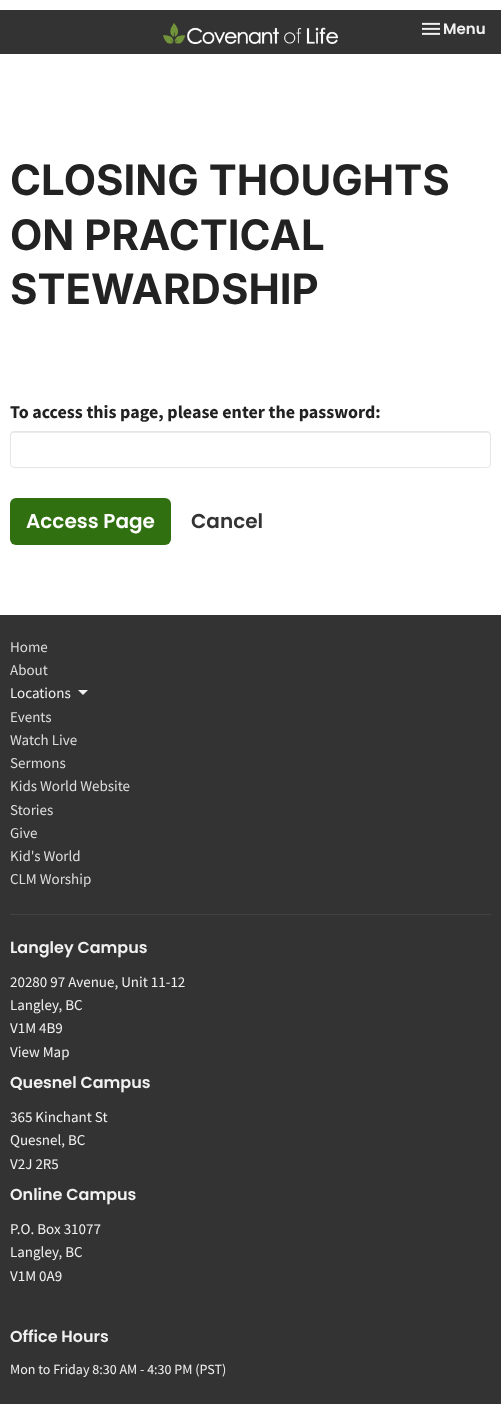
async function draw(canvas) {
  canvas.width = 501
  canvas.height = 1404
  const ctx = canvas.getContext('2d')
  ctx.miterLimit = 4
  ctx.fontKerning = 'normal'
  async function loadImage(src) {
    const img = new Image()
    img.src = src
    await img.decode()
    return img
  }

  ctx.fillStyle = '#fff'
  ctx.fillRect(0, 0, 501, 1404)
  ctx.fillStyle = '#333'
  ctx.fillRect(0, 10, 501, 44)
  ctx.drawImage(await loadImage('image0.png'), 163, 23, 175, 21)
  ctx.drawImage(await loadImage('image1.png'), 422, 22, 18, 13)
  ctx.font = '600 15px Poppins'
  ctx.fillStyle = '#f1f1f1'
  ctx.fillText('Menu', 443, 34)
  ctx.font = 'bold 42px Inter'
  ctx.fillStyle = '#222'
  ctx.fillText('CLOSING THOUGHTS', 10, 195)
  ctx.fillText('ON PRACTICAL', 10, 250)
  ctx.fillText('STEWARDSHIP', 10, 304)
  ctx.font = 'bold 18px Source Sans Pro'
  ctx.fillText('To access this page, please enter the password:', 10, 418)
  ctx.fillStyle = '#ececec'
  ctx.beginPath()
  ctx.moveTo(14, 433)
  ctx.lineTo(487, 433)
  ctx.bezierCurveTo(489, 433, 490, 434, 490, 436)
  ctx.lineTo(490, 435)
  ctx.bezierCurveTo(490, 433, 489, 432, 487, 432)
  ctx.lineTo(14, 432)
  ctx.bezierCurveTo(12, 432, 11, 433, 11, 435)
  ctx.lineTo(11, 436)
  ctx.bezierCurveTo(11, 434, 12, 433, 14, 433)
  ctx.closePath()
  ctx.fill()
  ctx.beginPath()
  ctx.roundRect(10.5, 431.5, 480, 36, 3.5)
  ctx.strokeStyle = '#e6e6e6'
  ctx.stroke()
  ctx.fillStyle = '#307010'
  ctx.beginPath()
  ctx.roundRect(10, 498, 161, 47, 6)
  ctx.fill()
  ctx.font = '600 20px Poppins'
  ctx.fillStyle = '#fff'
  ctx.fillText('Access Page', 26, 528)
  ctx.fillStyle = '#333'
  ctx.fillText('Cancel', 191, 528)
  ctx.fillRect(0, 615, 501, 789)
  ctx.font = '15px Source Sans Pro'
  ctx.fillStyle = '#dedede'
  ctx.fillText('Home', 10, 652)
  ctx.fillText('About', 10, 675)
  ctx.fillStyle = '#f1f1f1'
  ctx.fillText('Locations', 10, 698)
  ctx.beginPath()
  ctx.moveTo(78, 690)
  ctx.lineTo(83, 695)
  ctx.lineTo(88, 690)
  ctx.closePath()
  ctx.fill()
  ctx.fillStyle = '#dedede'
  ctx.fillText('Events', 10, 722)
  ctx.fillText('Watch Live', 10, 745)
  ctx.fillText('Sermons', 10, 768)
  ctx.fillText('Kids World Website', 10, 791)
  ctx.fillText('Stories', 10, 815)
  ctx.fillText('Give', 10, 838)
  ctx.fillText('Kid\'s World', 10, 861)
  ctx.fillText('CLM Worship', 10, 884)
  ctx.fillStyle = '#424242'
  ctx.fillRect(10, 914, 481, 1)
  ctx.font = '600 16px Poppins'
  ctx.fillStyle = '#f1f1f1'
  ctx.fillText('Langley Campus', 10, 953)
  ctx.font = '15px Source Sans Pro'
  ctx.fillText('20280 97 Avenue, Unit 11-12', 10, 987)
  ctx.fillText('Langley, BC', 10, 1010)
  ctx.fillText('V1M 4B9', 10, 1033)
  ctx.fillText('View Map', 10, 1057)
  ctx.font = '600 16px Poppins'
  ctx.fillText('Quesnel Campus', 10, 1088)
  ctx.font = '15px Source Sans Pro'
  ctx.fillText('365 Kinchant St', 10, 1122)
  ctx.fillText('Quesnel, BC', 10, 1145)
  ctx.fillText('V2J 2R5', 10, 1169)
  ctx.font = '600 16px Poppins'
  ctx.fillText('Online Campus', 10, 1200)
  ctx.font = '15px Source Sans Pro'
  ctx.fillText('P.O. Box 31077', 10, 1234)
  ctx.fillText('Langley, BC', 10, 1257)
  ctx.fillText('V1M 0A9', 10, 1281)
  ctx.font = '600 16px Poppins'
  ctx.fillText('Office Hours', 10, 1342)
  ctx.font = '14px Source Sans Pro'
  ctx.fillText('Mon to Friday 8:30 AM - 4:30 PM (PST)', 10, 1374)
}

draw(document.querySelector('canvas'))
